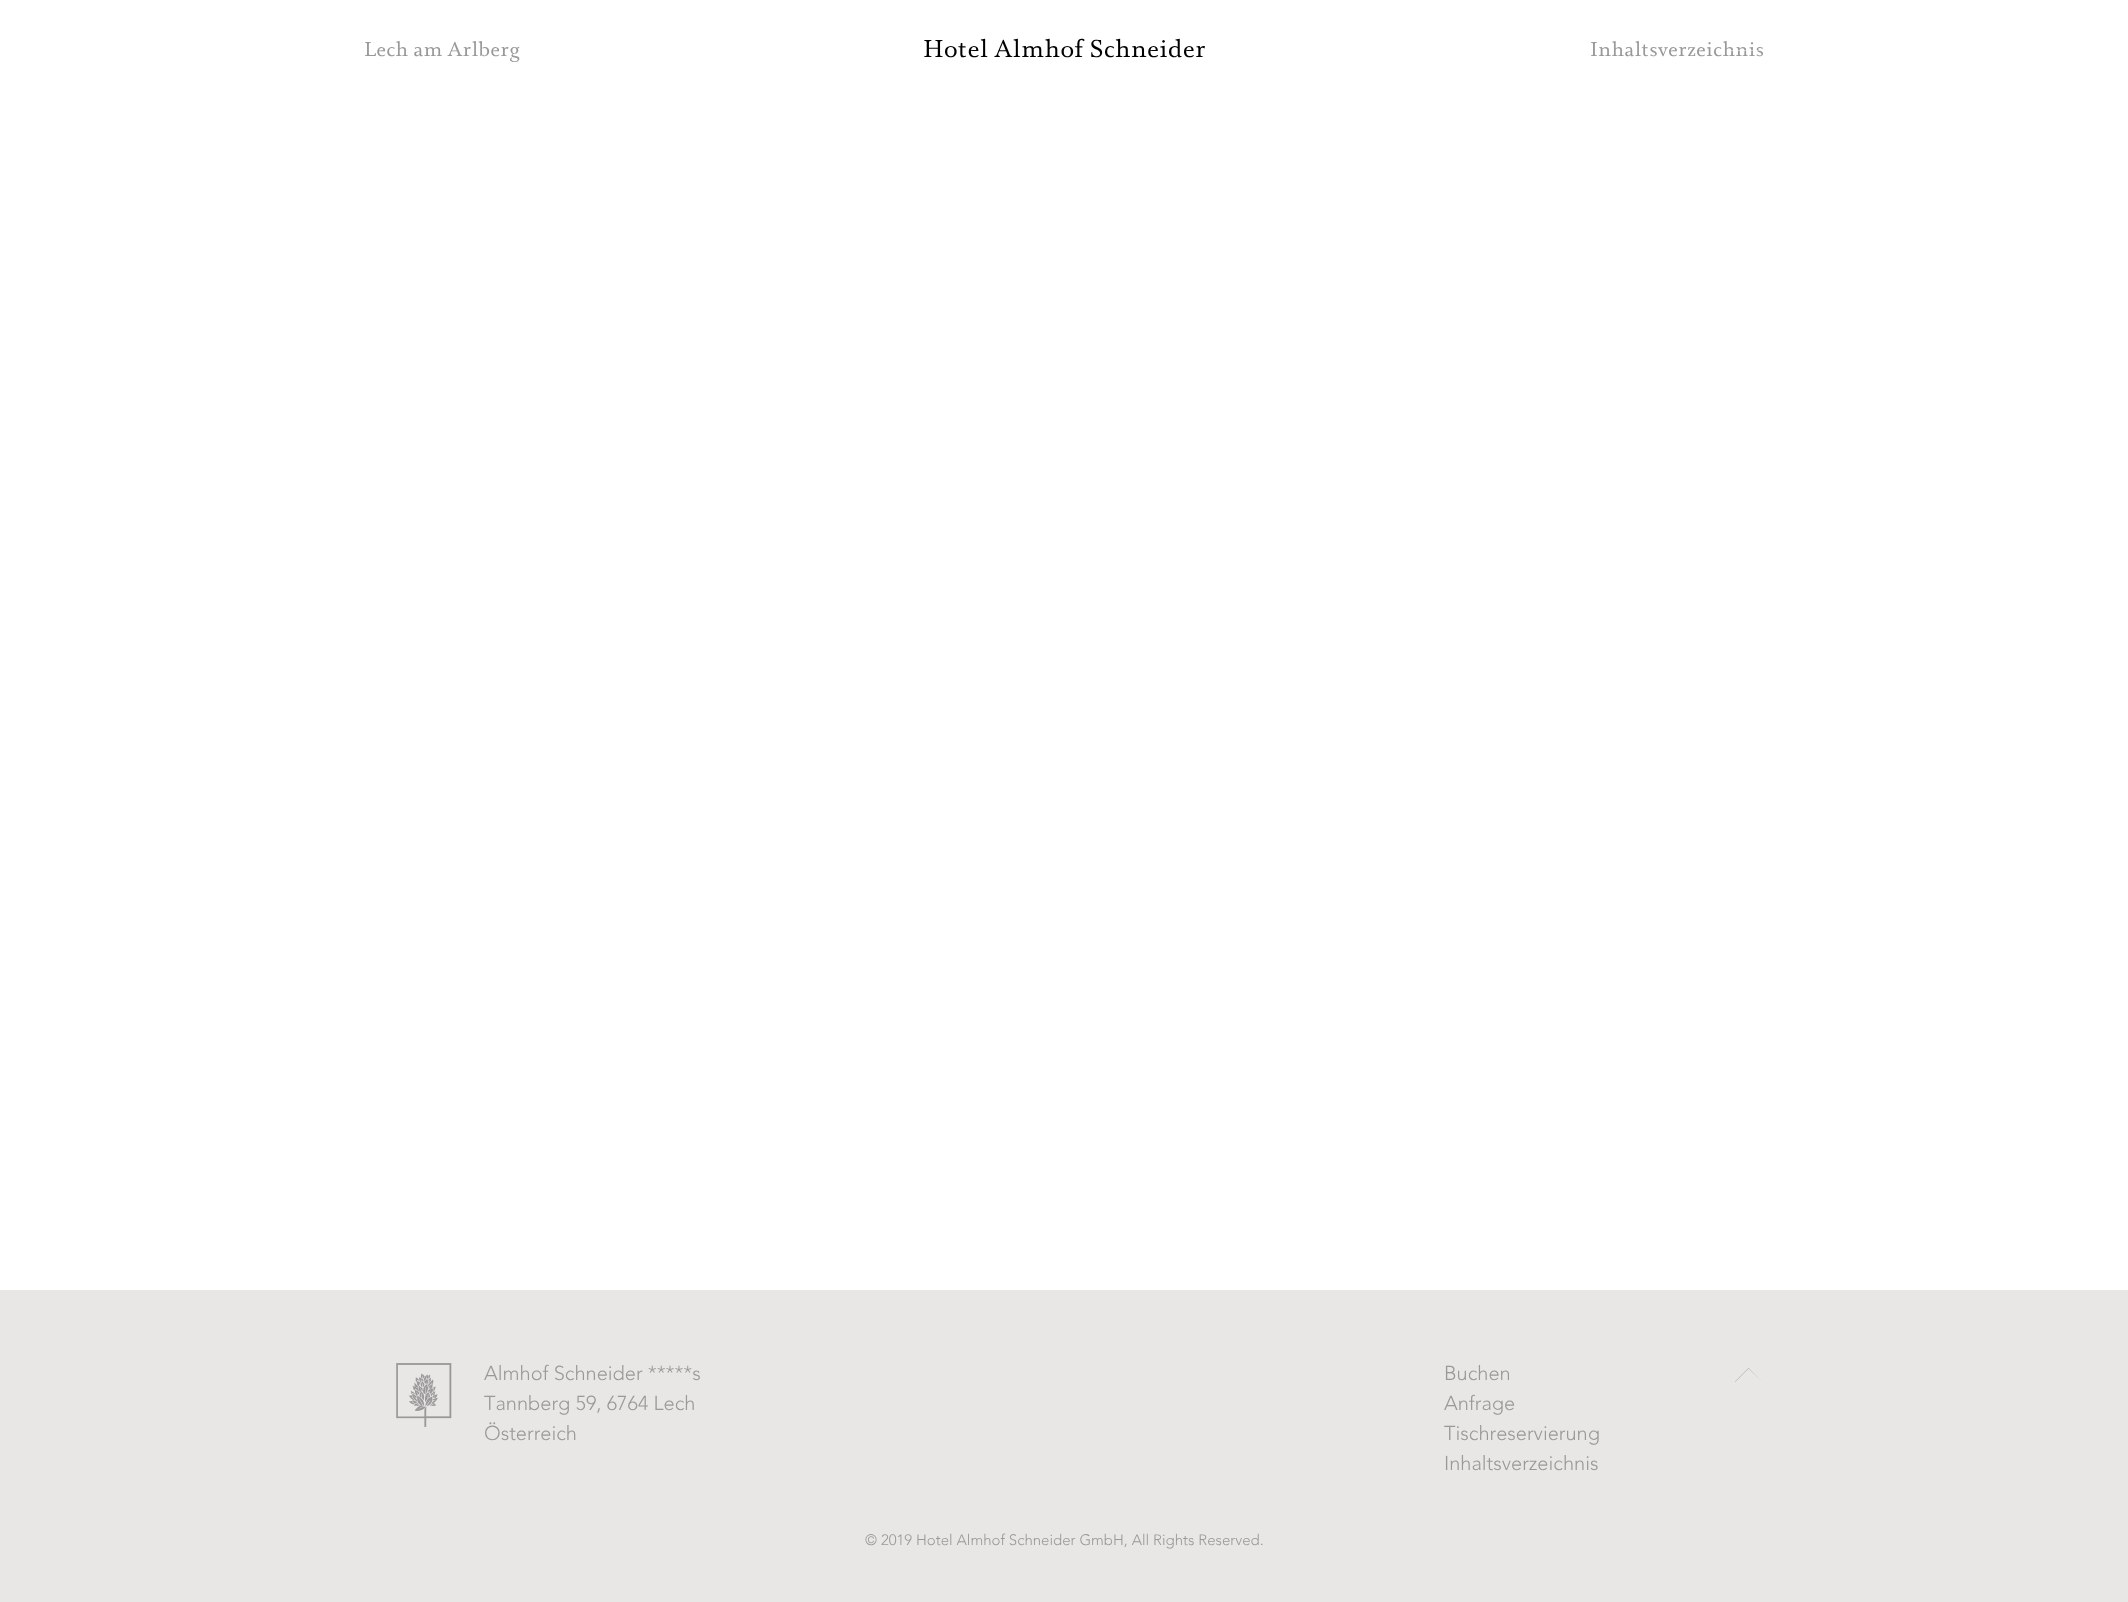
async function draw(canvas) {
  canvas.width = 2128
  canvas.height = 1602
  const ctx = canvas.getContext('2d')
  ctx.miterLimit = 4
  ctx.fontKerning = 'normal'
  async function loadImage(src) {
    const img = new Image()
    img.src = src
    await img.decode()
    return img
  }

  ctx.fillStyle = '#fff'
  ctx.fillRect(0, 0, 2128, 1602)
  ctx.font = '22.5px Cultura'
  ctx.fillStyle = '#999'
  ctx.fillText('Lech am Arlberg', 364, 56)
  ctx.font = '27.5px Cultura'
  ctx.fillStyle = '#000'
  ctx.fillText('Hotel Almhof Schneider', 923, 57)
  ctx.font = '22.5px Cultura'
  ctx.fillStyle = '#999'
  ctx.fillText('Inhaltsverzeichnis', 1590, 56)
  ctx.fillStyle = '#fff'
  ctx.beginPath()
  ctx.moveTo(1764, 51)
  ctx.lineTo(1731, 51)
  ctx.lineTo(1731, 50.5)
  ctx.lineTo(1764, 50.5)
  ctx.closePath()
  ctx.moveTo(1747.5, 50.5)
  ctx.lineTo(1747, 34.5)
  ctx.lineTo(1748, 34.5)
  ctx.closePath()
  ctx.moveTo(1747.5, 51)
  ctx.lineTo(1748, 67)
  ctx.lineTo(1747, 67)
  ctx.closePath()
  ctx.fill('evenodd')
  ctx.fillStyle = '#e9e7e5'
  ctx.fillRect(0, 1290, 2128, 312)
  ctx.drawImage(await loadImage('image0.png'), 396, 1363, 56, 64)
  ctx.font = '20px Avenir'
  ctx.fillStyle = '#999'
  ctx.fillText('Almhof Schneider *****s', 484, 1380)
  ctx.fillText('Tannberg 59, 6764 Lech', 484, 1410)
  ctx.fillText('Österreich', 484, 1440)
  ctx.fillText('Buchen', 1444, 1380)
  ctx.fillText('Anfrage', 1444, 1410)
  ctx.fillText('Tischreservierung', 1444, 1440)
  ctx.fillText('Inhaltsverzeichnis', 1444, 1470)
  ctx.beginPath()
  ctx.moveTo(1762.5, 1382)
  ctx.lineTo(1748.5, 1368)
  ctx.lineTo(1735, 1381.5)
  ctx.lineTo(1735, 1382)
  ctx.lineTo(1748.5, 1368.5)
  ctx.closePath()
  ctx.fill()
  ctx.font = '15px Avenir'
  ctx.fillText('© 2019 Hotel Almhof Schneider GmbH, All Rights Reserved.', 865, 1545)
}

draw(document.querySelector('canvas'))
